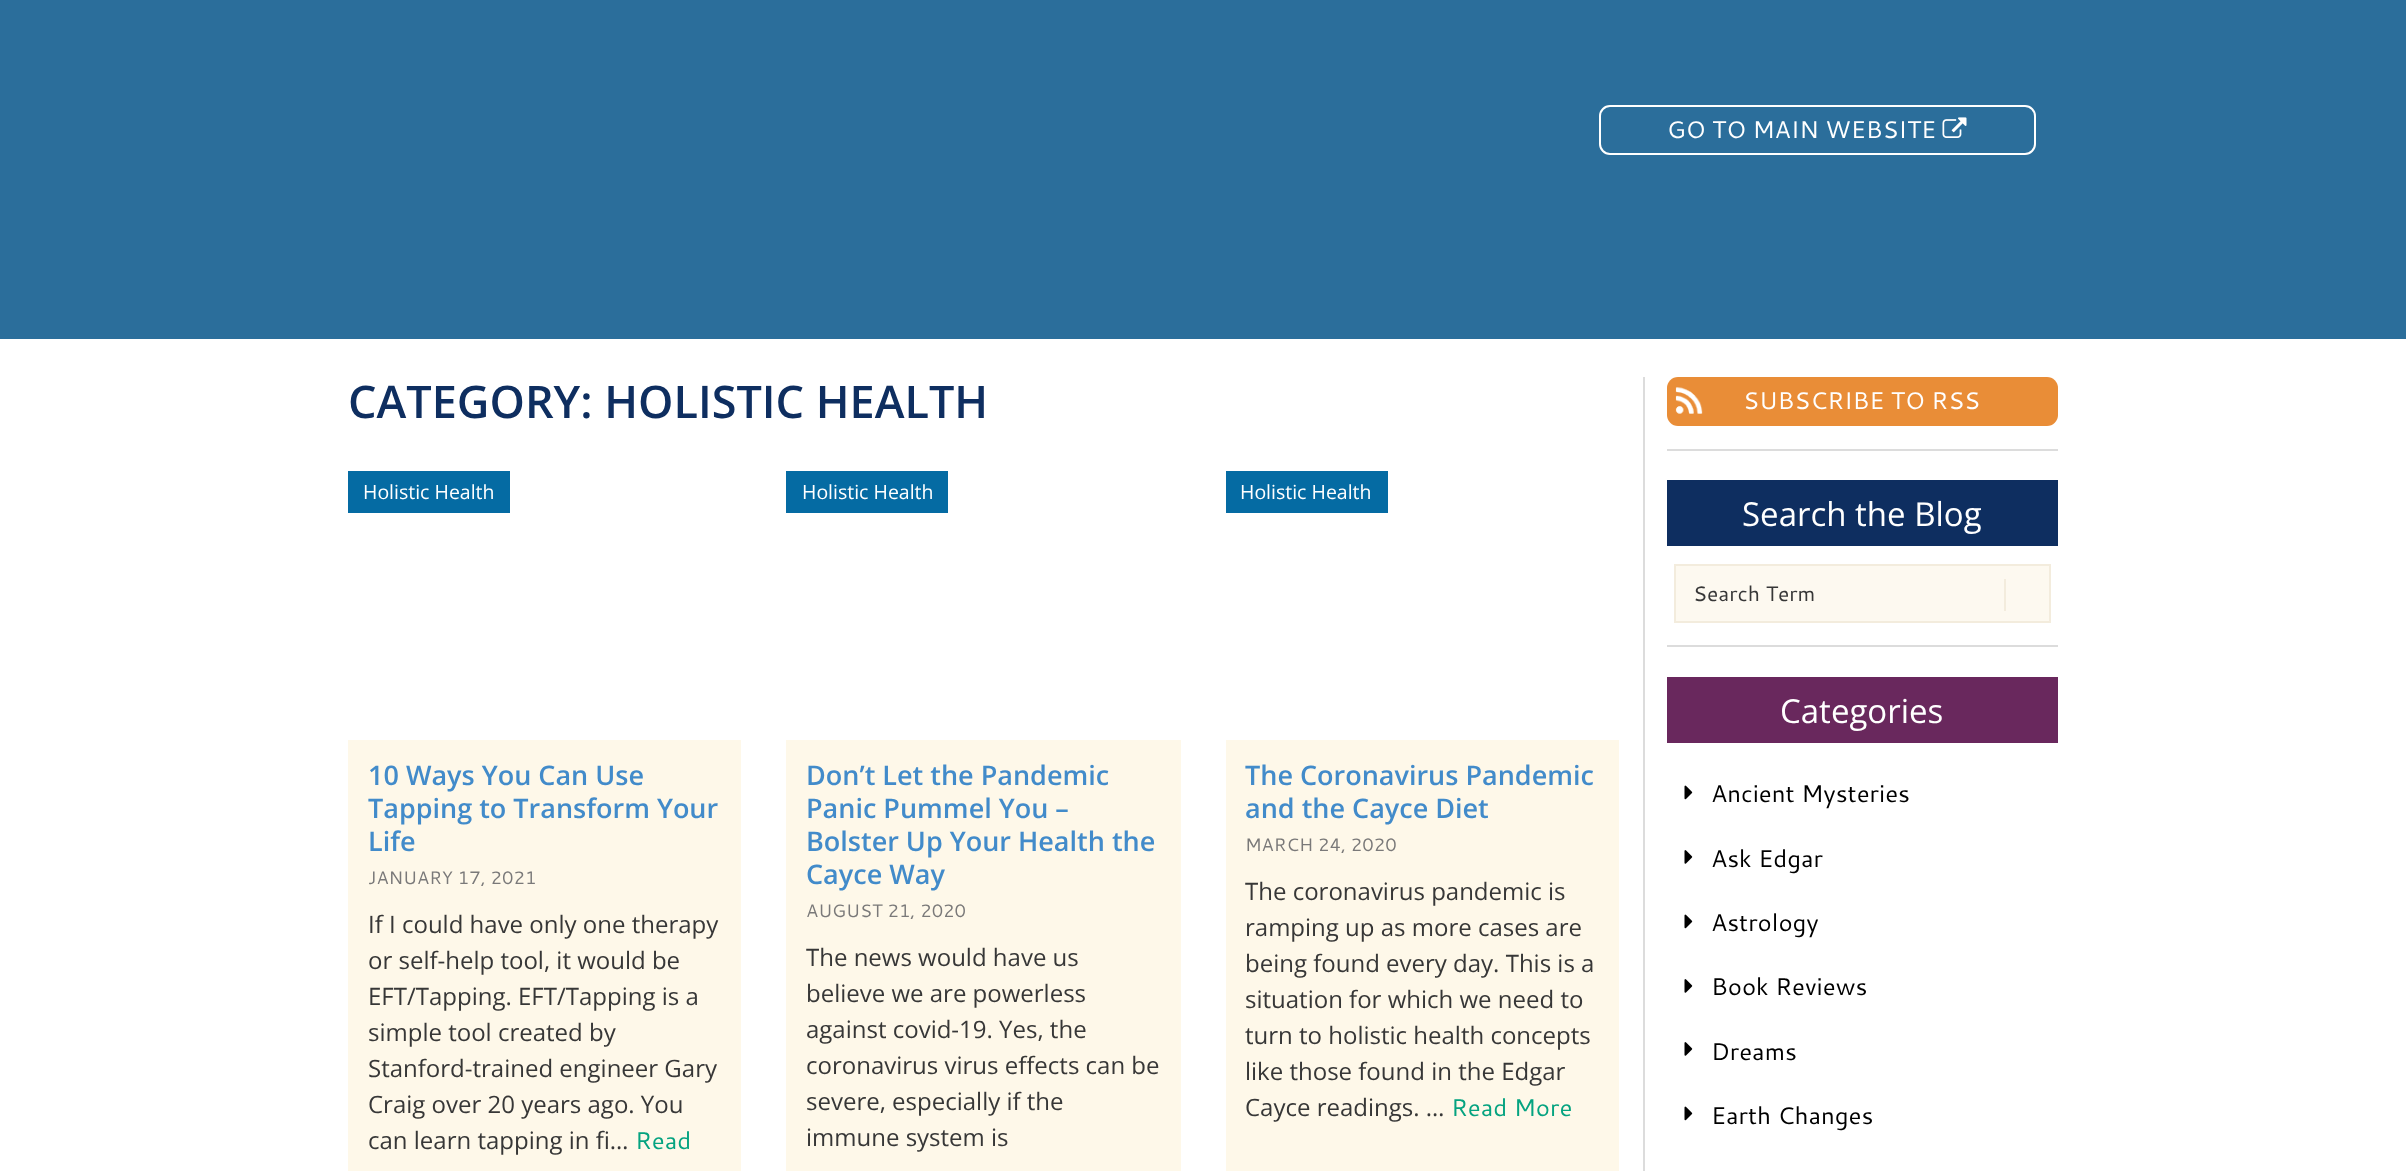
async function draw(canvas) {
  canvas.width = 2406
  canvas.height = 1171
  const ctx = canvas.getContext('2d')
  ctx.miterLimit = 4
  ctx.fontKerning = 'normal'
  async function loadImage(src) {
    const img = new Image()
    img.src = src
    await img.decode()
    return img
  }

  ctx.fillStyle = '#fff'
  ctx.fillRect(0, 0, 2406, 1171)
  ctx.fillStyle = '#2b6e9b'
  ctx.fillRect(0, 0, 2406, 339)
  ctx.beginPath()
  ctx.roundRect(1600, 106, 435, 48, 10)
  ctx.strokeStyle = '#fff'
  ctx.lineWidth = 2
  ctx.stroke()
  ctx.font = '24px Cantarell'
  ctx.fillStyle = '#fff'
  ctx.fillText('GO TO MAIN WEBSITE', 1667, 138)
  ctx.drawImage(await loadImage('image0.png'), 1942, 117, 25, 21)
  ctx.font = '600 45px Open Sans'
  ctx.fillStyle = '#0e2e60'
  ctx.fillText('CATEGORY: HOLISTIC HEALTH', 348, 418)
  ctx.fillStyle = '#056ba3'
  ctx.fillRect(348, 471, 162, 42)
  ctx.font = '19.5px Open Sans'
  ctx.fillStyle = '#fff'
  ctx.fillText('Holistic Health', 363, 499)
  ctx.fillStyle = '#fef8e9'
  ctx.fillRect(348, 740, 393, 431)
  ctx.font = '600 27px Open Sans'
  ctx.fillStyle = '#428bca'
  ctx.fillText('10 Ways You Can Use', 368, 785)
  ctx.fillText('Tapping to Transform Your', 368, 818)
  ctx.fillText('Life', 368, 851)
  ctx.font = '18px Cantarell'
  ctx.fillStyle = '#7a7979'
  ctx.fillText('JANUARY 17, 2021', 368, 884)
  ctx.font = '24px Open Sans'
  ctx.fillStyle = '#373737'
  ctx.fillText('If I could have only one therapy', 368, 933)
  ctx.fillText('or self-help tool, it would be', 368, 969)
  ctx.fillText('EFT/Tapping. EFT/Tapping is a', 368, 1005)
  ctx.fillText('simple tool created by', 368, 1041)
  ctx.fillText('Stanford-trained engineer Gary', 368, 1077)
  ctx.fillText('Craig over 20 years ago. You', 368, 1113)
  ctx.fillText('can learn tapping in fi…', 368, 1149)
  ctx.font = '24px Cantarell'
  ctx.fillStyle = '#05a380'
  ctx.fillText('Read', 635, 1149)
  ctx.fillStyle = '#056ba3'
  ctx.fillRect(786, 471, 162, 42)
  ctx.font = '19.5px Open Sans'
  ctx.fillStyle = '#fff'
  ctx.fillText('Holistic Health', 802, 499)
  ctx.fillStyle = '#fef8e9'
  ctx.fillRect(786, 740, 395, 431)
  ctx.font = '600 27px Open Sans'
  ctx.fillStyle = '#428bca'
  ctx.fillText('Don’t Let the Pandemic', 806, 785)
  ctx.fillText('Panic Pummel You –', 806, 818)
  ctx.fillText('Bolster Up Your Health the', 806, 851)
  ctx.fillText('Cayce Way', 806, 884)
  ctx.font = '18px Cantarell'
  ctx.fillStyle = '#7a7979'
  ctx.fillText('AUGUST 21, 2020', 806, 917)
  ctx.font = '24px Open Sans'
  ctx.fillStyle = '#373737'
  ctx.fillText('The news would have us', 806, 966)
  ctx.fillText('believe we are powerless', 806, 1002)
  ctx.fillText('against covid-19. Yes, the', 806, 1038)
  ctx.fillText('coronavirus virus effects can be', 806, 1074)
  ctx.fillText('severe, especially if the', 806, 1110)
  ctx.fillText('immune system is', 806, 1146)
  ctx.fillStyle = '#056ba3'
  ctx.fillRect(1226, 471, 162, 42)
  ctx.font = '19.5px Open Sans'
  ctx.fillStyle = '#fff'
  ctx.fillText('Holistic Health', 1240, 499)
  ctx.fillStyle = '#fef8e9'
  ctx.fillRect(1226, 740, 393, 431)
  ctx.font = '600 27px Open Sans'
  ctx.fillStyle = '#428bca'
  ctx.fillText('The Coronavirus Pandemic', 1245, 785)
  ctx.fillText('and the Cayce Diet', 1245, 818)
  ctx.font = '18px Cantarell'
  ctx.fillStyle = '#7a7979'
  ctx.fillText('MARCH 24, 2020', 1245, 851)
  ctx.font = '24px Open Sans'
  ctx.fillStyle = '#373737'
  ctx.fillText('The coronavirus pandemic is', 1245, 900)
  ctx.fillText('ramping up as more cases are', 1245, 936)
  ctx.fillText('being found every day. This is a', 1245, 972)
  ctx.fillText('situation for which we need to', 1245, 1008)
  ctx.fillText('turn to holistic health concepts', 1245, 1044)
  ctx.fillText('like those found in the Edgar', 1245, 1080)
  ctx.fillText('Cayce readings. …', 1245, 1116)
  ctx.font = '24px Cantarell'
  ctx.fillStyle = '#05a380'
  ctx.fillText('Read More', 1451, 1116)
  ctx.fillStyle = '#dcdcdc'
  ctx.fillRect(1643, 377, 2, 794)
  ctx.fillRect(1667, 449, 391, 2)
  ctx.fillStyle = '#e98d37'
  ctx.beginPath()
  ctx.roundRect(1667, 377, 391, 49, 11)
  ctx.fill()
  ctx.drawImage(await loadImage('image1.png'), 1675, 387, 28, 27)
  ctx.fillStyle = '#fff'
  ctx.fillText('SUBSCRIBE TO RSS', 1743, 409)
  ctx.fillStyle = '#dcdcdc'
  ctx.fillRect(1667, 645, 391, 2)
  ctx.fillStyle = '#0e2e60'
  ctx.fillRect(1667, 480, 391, 66)
  ctx.font = '33px Open Sans'
  ctx.fillStyle = '#fff'
  ctx.fillText('Search the Blog', 1742, 526)
  ctx.fillStyle = '#fdf9f0'
  ctx.beginPath()
  ctx.rect(1675, 565, 375, 57)
  ctx.fill()
  ctx.strokeStyle = '#f3ecdd'
  ctx.stroke()
  ctx.font = '21px Cantarell'
  ctx.fillStyle = '#373737'
  ctx.fillText('Search Term', 1693, 601)
  ctx.fillStyle = '#f3ecdd'
  ctx.fillRect(2004, 579, 2, 32)
  ctx.fillStyle = '#69285d'
  ctx.fillRect(1667, 677, 391, 66)
  ctx.font = '33px Open Sans'
  ctx.fillStyle = '#fff'
  ctx.fillText('Categories', 1780, 723)
  ctx.drawImage(await loadImage('image2.png'), 1684, 785, 9, 15)
  ctx.font = '24px Cantarell'
  ctx.fillStyle = '#000'
  ctx.fillText('Ancient Mysteries', 1711, 802)
  ctx.drawImage(await loadImage('image3.png'), 1684, 850, 9, 14)
  ctx.fillText('Ask Edgar', 1711, 867)
  ctx.drawImage(await loadImage('image2.png'), 1684, 914, 9, 15)
  ctx.fillText('Astrology', 1711, 931)
  ctx.drawImage(await loadImage('image3.png'), 1684, 979, 9, 14)
  ctx.fillText('Book Reviews', 1711, 995)
  ctx.drawImage(await loadImage('image3.png'), 1684, 1042, 9, 14)
  ctx.fillText('Dreams', 1711, 1060)
  ctx.drawImage(await loadImage('image2.png'), 1684, 1106, 9, 15)
  ctx.fillText('Earth Changes', 1711, 1124)
}

draw(document.querySelector('canvas'))
